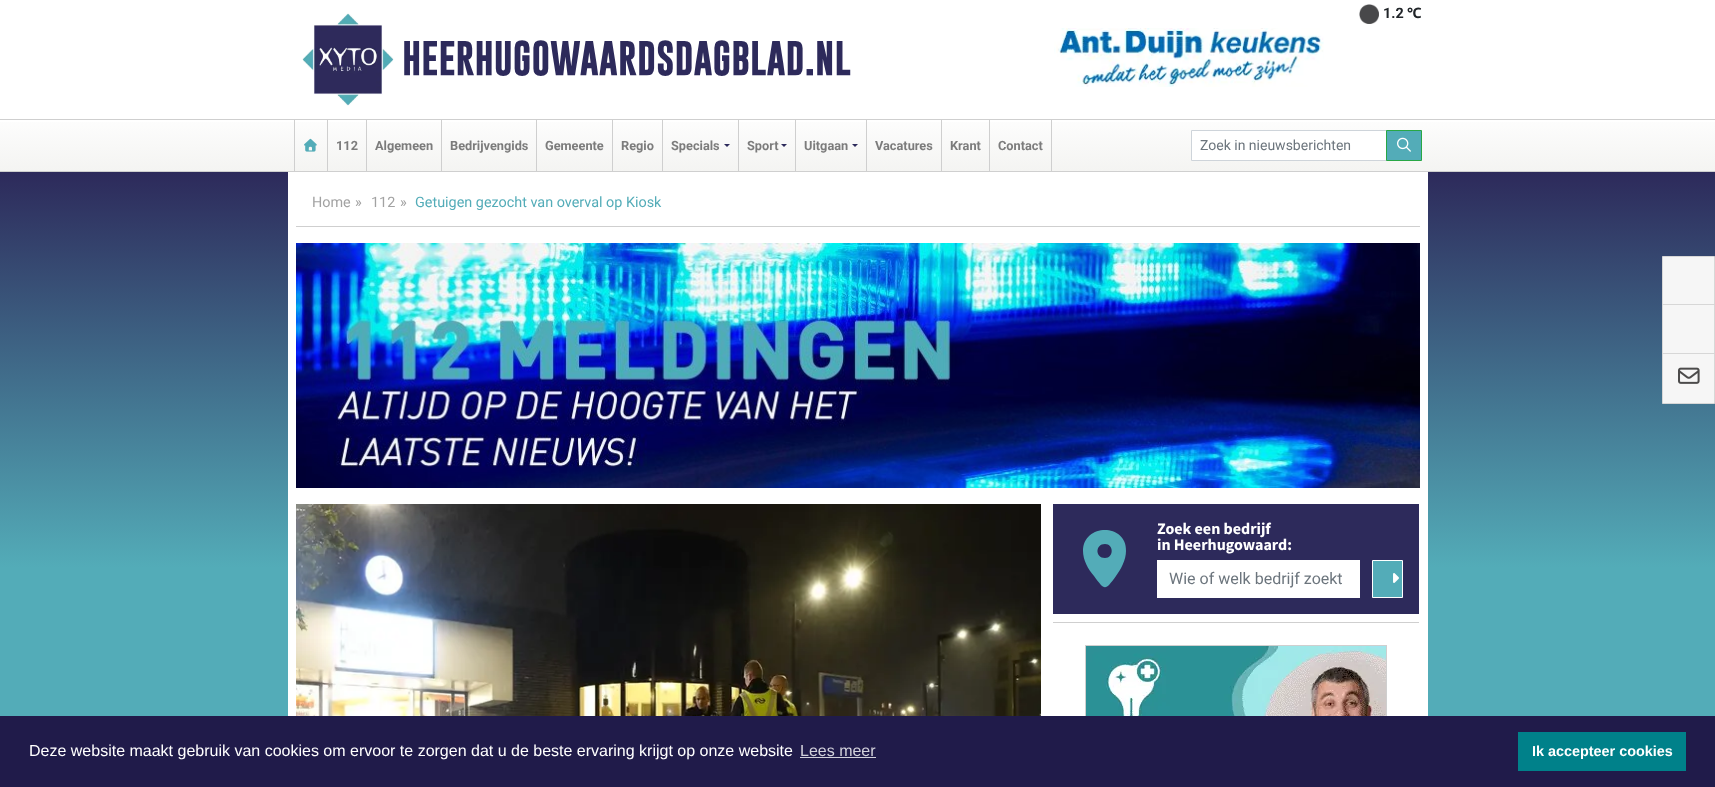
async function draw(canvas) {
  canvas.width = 1715
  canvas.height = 787
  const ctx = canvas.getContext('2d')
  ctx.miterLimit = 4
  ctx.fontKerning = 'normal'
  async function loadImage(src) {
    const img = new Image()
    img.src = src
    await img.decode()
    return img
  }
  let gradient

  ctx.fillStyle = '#fff'
  ctx.fillRect(0, 0, 1715, 787)
  ctx.drawImage(await loadImage('image0.png'), 1359, 4, 20, 20)
  ctx.font = 'bold 14.4px Roboto'
  ctx.fillStyle = '#212529'
  ctx.fillText('1.2', 1383, 18)
  ctx.font = 'bold 14.4px Noto Sans'
  ctx.fillText('℃', 1407, 18)
  ctx.drawImage(await loadImage('image1.png'), 1054, 28, 270, 59)
  ctx.drawImage(await loadImage('image2.png'), 302, 13, 92, 93)
  ctx.font = 'bold 35.25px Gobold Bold'
  ctx.fillStyle = '#2d2a5b'
  ctx.fillText('HEERHUGOWAARDSDAGBLAD.NL', 402, 75)
  gradient = ctx.createLinearGradient(858, 120, 858, 171)
  gradient.addColorStop(0, '#fdfdfd')
  gradient.addColorStop(1, '#f4f4f2')
  ctx.fillStyle = gradient
  ctx.fillRect(0, 122, 1715, 49)
  ctx.fillStyle = '#cfcfcf'
  ctx.fillRect(0, 119, 1715, 1)
  ctx.fillRect(0, 171, 1715, 1)
  ctx.fillRect(327, 120, 1, 51)
  ctx.fillRect(294, 120, 1, 51)
  ctx.drawImage(await loadImage('image3.png'), 304, 138, 13, 14)
  ctx.fillRect(366, 120, 1, 51)
  ctx.font = 'bold 12.75px Roboto'
  ctx.fillStyle = '#7c7c7c'
  ctx.fillText('112', 336, 150)
  ctx.fillStyle = '#cfcfcf'
  ctx.fillRect(441, 120, 1, 51)
  ctx.fillStyle = '#7c7c7c'
  ctx.fillText('Algemeen', 375, 150)
  ctx.fillStyle = '#cfcfcf'
  ctx.fillRect(536, 120, 1, 51)
  ctx.fillStyle = '#7c7c7c'
  ctx.fillText('Bedrijvengids', 450, 150)
  ctx.fillStyle = '#cfcfcf'
  ctx.fillRect(612, 120, 1, 51)
  ctx.fillStyle = '#7c7c7c'
  ctx.fillText('Gemeente', 545, 150)
  ctx.fillStyle = '#cfcfcf'
  ctx.fillRect(662, 120, 1, 51)
  ctx.fillStyle = '#7c7c7c'
  ctx.fillText('Regio', 621, 150)
  ctx.fillStyle = '#cfcfcf'
  ctx.fillRect(738, 120, 1, 51)
  ctx.fillStyle = '#7c7c7c'
  ctx.fillText('Specials', 671, 150)
  ctx.fillStyle = '#2d2a5b'
  ctx.beginPath()
  ctx.moveTo(724, 144)
  ctx.lineTo(730, 144)
  ctx.lineTo(727, 147)
  ctx.closePath()
  ctx.fill()
  ctx.fillStyle = '#cfcfcf'
  ctx.fillRect(795, 120, 1, 51)
  ctx.fillStyle = '#7c7c7c'
  ctx.fillText('Sport', 747, 150)
  ctx.fillStyle = '#2d2a5b'
  ctx.beginPath()
  ctx.moveTo(781, 144)
  ctx.lineTo(787, 144)
  ctx.lineTo(784, 147)
  ctx.closePath()
  ctx.fill()
  ctx.fillStyle = '#cfcfcf'
  ctx.fillRect(866, 120, 1, 51)
  ctx.fillStyle = '#7c7c7c'
  ctx.fillText('Uitgaan', 804, 150)
  ctx.fillStyle = '#2d2a5b'
  ctx.beginPath()
  ctx.moveTo(852, 144)
  ctx.lineTo(858, 144)
  ctx.lineTo(855, 147)
  ctx.closePath()
  ctx.fill()
  ctx.fillStyle = '#cfcfcf'
  ctx.fillRect(941, 120, 1, 51)
  ctx.fillStyle = '#7c7c7c'
  ctx.fillText('Vacatures', 875, 150)
  ctx.fillStyle = '#cfcfcf'
  ctx.fillRect(989, 120, 1, 51)
  ctx.fillStyle = '#7c7c7c'
  ctx.fillText('Krant', 950, 150)
  ctx.fillStyle = '#cfcfcf'
  ctx.fillRect(1051, 120, 1, 51)
  ctx.fillStyle = '#7c7c7c'
  ctx.fillText('Contact', 998, 150)
  ctx.fillStyle = '#fff'
  ctx.beginPath()
  ctx.rect(1191.5, 130.5, 195, 30)
  ctx.fill()
  ctx.strokeStyle = '#ced4da'
  ctx.stroke()
  ctx.font = '14px Roboto'
  ctx.fillStyle = '#6c757d'
  ctx.fillText('Zoek in nieuwsberichten', 1200, 150)
  ctx.fillStyle = '#53acb8'
  ctx.beginPath()
  ctx.rect(1386.5, 130.5, 35, 30)
  ctx.fill()
  ctx.strokeStyle = '#28a745'
  ctx.stroke()
  ctx.drawImage(await loadImage('image4.png'), 1397, 137, 14, 15)
  gradient = ctx.createLinearGradient(857, 172, 858, 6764)
  gradient.addColorStop(0, '#2d2a5b')
  gradient.addColorStop(0.06, '#53acb8')
  ctx.fillStyle = gradient
  ctx.fillRect(0, 172, 1715, 544)
  ctx.fillStyle = '#fff'
  ctx.fillRect(288, 172, 1140, 544)
  ctx.fillStyle = '#cfcfcf'
  ctx.fillRect(296, 226, 1124, 1)
  ctx.font = '14.4px Roboto'
  ctx.fillStyle = '#a2a2a2'
  ctx.fillText('Home', 312, 207)
  ctx.fillText('»', 355, 207)
  ctx.fillText('112', 371, 207)
  ctx.fillText('»', 400, 207)
  ctx.fillStyle = '#53acb8'
  ctx.fillText('Getuigen gezocht van overval op Kiosk', 415, 207)
  ctx.drawImage(await loadImage('image5.png'), 296, 243, 1124, 245)
  ctx.drawImage(await loadImage('image6.png'), 296, 504, 745, 212)
  ctx.fillStyle = '#2d2a5b'
  ctx.fillRect(1053, 504, 366, 110)
  ctx.fillStyle = '#53acb8'
  ctx.beginPath()
  ctx.moveTo(1083, 551)
  ctx.bezierCurveTo(1083, 523, 1127, 523, 1126, 551)
  ctx.bezierCurveTo(1126, 560, 1121, 569, 1116, 576)
  ctx.bezierCurveTo(1105, 591, 1105, 591, 1094, 576)
  ctx.bezierCurveTo(1088, 569, 1083, 560, 1083, 551)
  ctx.closePath()
  ctx.moveTo(1105, 558)
  ctx.bezierCurveTo(1114, 558, 1114, 544, 1105, 544)
  ctx.bezierCurveTo(1095, 544, 1095, 558, 1105, 558)
  ctx.closePath()
  ctx.fill()
  ctx.font = 'bold 16px Source Sans Pro'
  ctx.fillStyle = '#fff'
  ctx.fillText('Zoek een bedrijf', 1157, 534)
  ctx.fillText('in Heerhugowaard:', 1157, 550)
  ctx.fillRect(1157, 560, 203, 38)
  ctx.font = '16px Roboto'
  ctx.fillStyle = '#6c757d'
  ctx.fillText('Wie of welk bedrijf zoekt', 1169, 584)
  ctx.fillStyle = '#53acb8'
  ctx.beginPath()
  ctx.rect(1372.5, 560.5, 30, 37)
  ctx.fill()
  ctx.strokeStyle = '#fff'
  ctx.stroke()
  ctx.drawImage(await loadImage('image7.png'), 1393, 573, 6, 10)
  ctx.fillStyle = '#cfcfcf'
  ctx.fillRect(1053, 622, 366, 1)
  ctx.strokeStyle = '#cfcfcf'
  ctx.strokeRect(1085.5, 645.5, 301, 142)
  ctx.drawImage(await loadImage('image8.png'), 1086, 646, 300, 70)
  ctx.fillStyle = '#f6f6f6'
  ctx.beginPath()
  ctx.rect(1662.5, 256.5, 52, 48)
  ctx.fill()
  ctx.strokeStyle = '#d7d7d7'
  ctx.stroke()
  ctx.beginPath()
  ctx.rect(1662.5, 304.5, 52, 49)
  ctx.fill()
  ctx.stroke()
  ctx.beginPath()
  ctx.rect(1662.5, 353.5, 52, 50)
  ctx.fill()
  ctx.stroke()
  ctx.drawImage(await loadImage('image9.png'), 1678, 367, 22, 17)
  ctx.fillStyle = '#201b4a'
  ctx.fillRect(0, 716, 1715, 71)
  ctx.font = '16px Liberation Sans'
  ctx.fillStyle = '#fff'
  ctx.fillText('Deze website maakt gebruik van cookies om ervoor te zorgen dat u de beste ervaring krijgt op onze website', 29, 756)
  ctx.fillStyle = '#d2d1db'
  ctx.fillText('Lees meer', 800, 756)
  ctx.fillRect(800, 757, 76, 1)
  ctx.fillStyle = '#00818a'
  ctx.fillRect(1518, 732, 168, 39)
  ctx.font = 'bold 14.4px Liberation Sans'
  ctx.fillStyle = '#fff'
  ctx.fillText('Ik accepteer cookies', 1532, 756)
}

draw(document.querySelector('canvas'))
